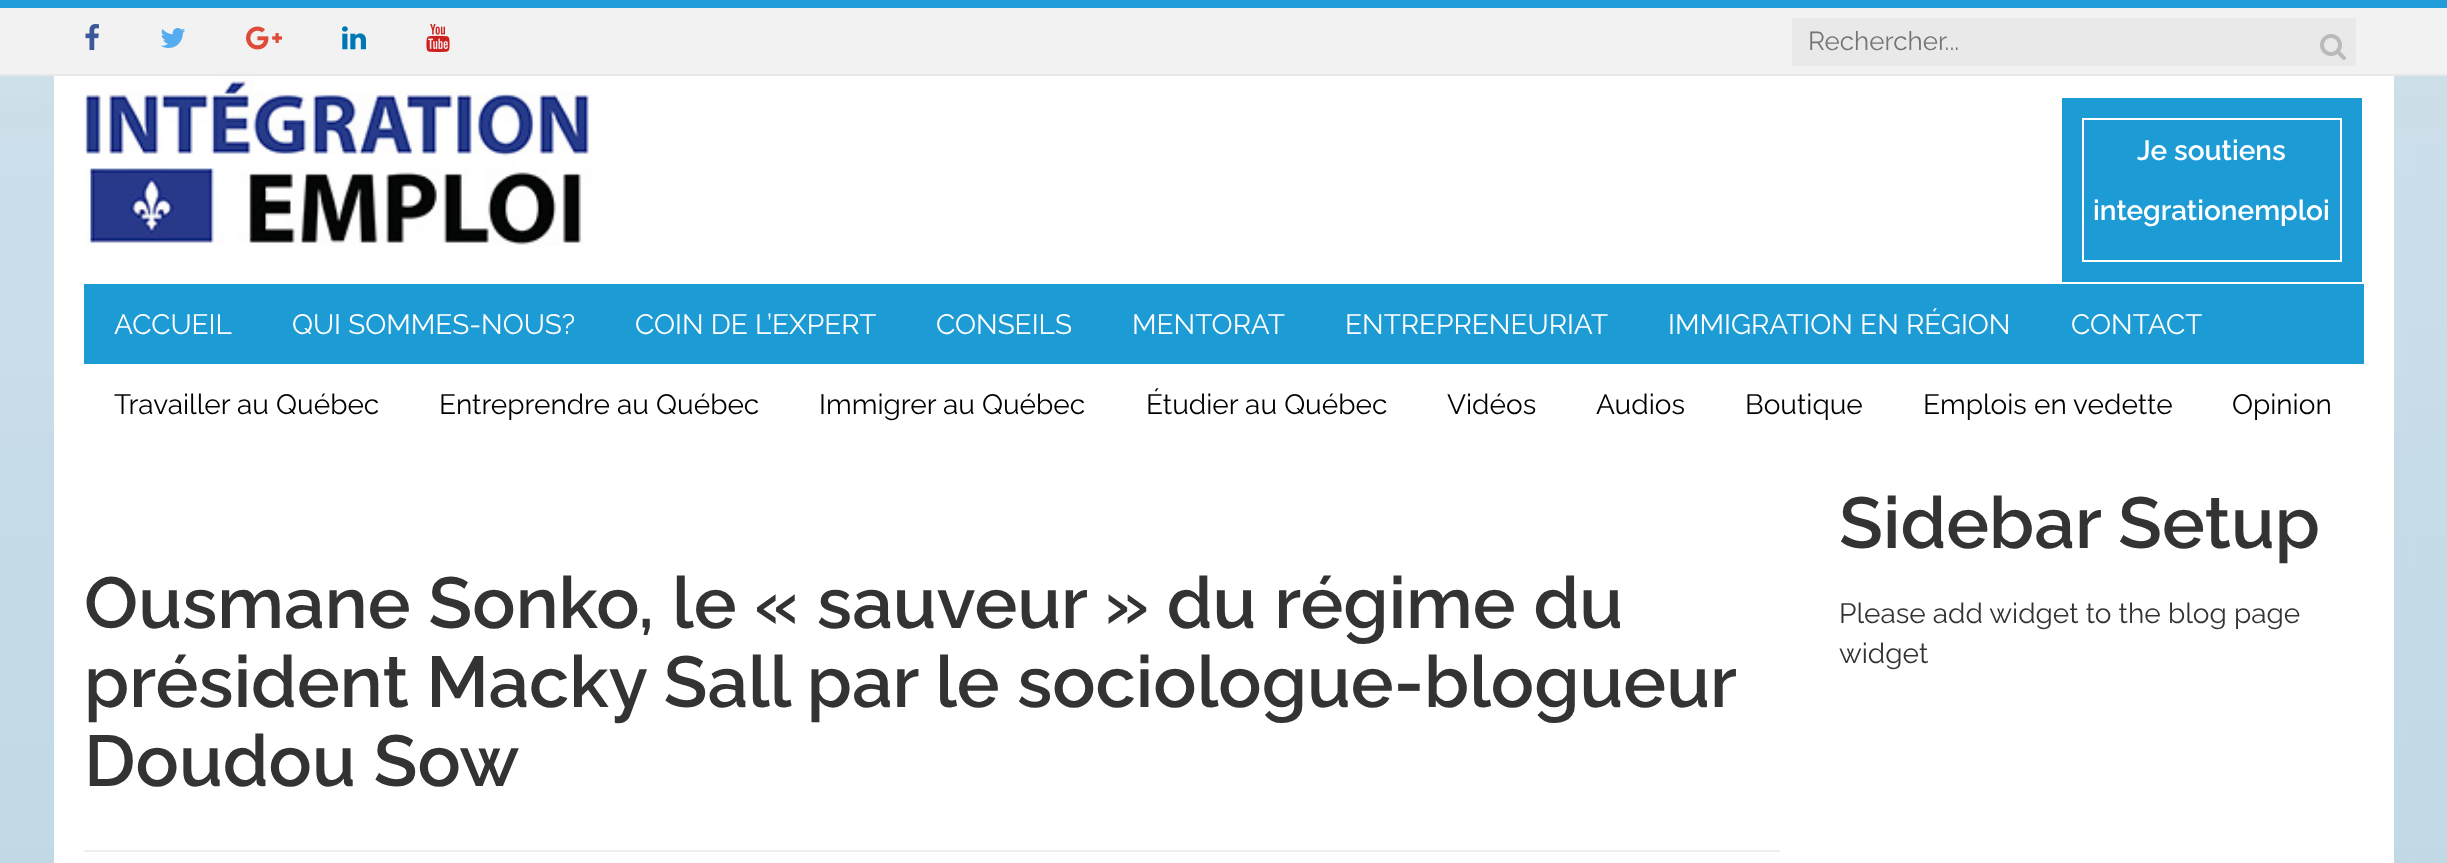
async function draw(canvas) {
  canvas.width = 2447
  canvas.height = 863
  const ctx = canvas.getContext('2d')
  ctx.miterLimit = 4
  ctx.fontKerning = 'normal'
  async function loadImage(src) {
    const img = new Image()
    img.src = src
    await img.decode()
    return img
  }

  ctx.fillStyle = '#fff'
  ctx.fillRect(0, 0, 2447, 863)
  ctx.drawImage(await loadImage('image0.png'), 0, 76, 2447, 787)
  ctx.fillStyle = '#f2f2f2'
  ctx.fillRect(0, 8, 2447, 66)
  ctx.fillStyle = '#209cda'
  ctx.fillRect(0, 0, 2447, 8)
  ctx.fillStyle = '#e7e7e7'
  ctx.fillRect(0, 74, 2447, 2)
  ctx.drawImage(await loadImage('image1.png'), 85, 24, 14, 26)
  ctx.drawImage(await loadImage('image2.png'), 160, 28, 26, 20)
  ctx.drawImage(await loadImage('image3.png'), 246, 26, 36, 24)
  ctx.drawImage(await loadImage('image4.png'), 342, 26, 24, 24)
  ctx.drawImage(await loadImage('image5.png'), 426, 24, 24, 28)
  ctx.fillStyle = '#e9e9e9'
  ctx.fillRect(1792, 18, 564, 48)
  ctx.font = '26px Raleway'
  ctx.fillStyle = '#757575'
  ctx.fillText('Rechercher...', 1808, 50)
  ctx.drawImage(await loadImage('image6.png'), 2320, 34, 26, 26)
  ctx.fillStyle = '#fff'
  ctx.fillRect(54, 76, 2340, 787)
  ctx.drawImage(await loadImage('image7.png'), 84, 76, 508, 170)
  ctx.fillStyle = '#1d9bd5'
  ctx.fillRect(2062, 98, 300, 184)
  ctx.strokeStyle = '#fff'
  ctx.lineWidth = 2
  ctx.strokeRect(2083, 119, 258, 142)
  ctx.font = '600 28px Raleway'
  ctx.fillStyle = '#fff'
  ctx.fillText('Je soutiens', 2137, 160)
  ctx.fillText('integrationemploi', 2093, 220)
  ctx.fillStyle = '#1d9bd5'
  ctx.fillRect(84, 284, 2280, 80)
  ctx.font = '28px Raleway'
  ctx.fillStyle = '#fff'
  ctx.fillText('ACCUEIL', 114, 334)
  ctx.fillText('QUI SOMMES-NOUS?', 292, 334)
  ctx.fillText('COIN DE L’EXPERT', 635, 334)
  ctx.fillText('CONSEILS', 936, 334)
  ctx.fillText('MENTORAT', 1132, 334)
  ctx.fillText('ENTREPRENEURIAT', 1345, 334)
  ctx.fillText('IMMIGRATION EN RÉGION', 1668, 334)
  ctx.fillText('CONTACT', 2071, 334)
  ctx.fillStyle = '#000'
  ctx.fillText('Travailler au Québec', 114, 414)
  ctx.fillText('Entreprendre au Québec', 439, 414)
  ctx.fillText('Immigrer au Québec', 819, 414)
  ctx.fillText('Étudier au Québec', 1146, 414)
  ctx.fillText('Vidéos', 1447, 414)
  ctx.fillText('Audios', 1596, 414)
  ctx.fillText('Boutique', 1745, 414)
  ctx.fillText('Emplois en vedette', 1923, 414)
  ctx.fillText('Opinion', 2232, 414)
  ctx.fillStyle = '#eee'
  ctx.fillRect(84, 850, 1696, 2)
  ctx.font = '600 72px Raleway'
  ctx.fillStyle = '#333'
  ctx.fillText('Ousmane Sonko, le « sauveur » du régime du', 84, 628)
  ctx.wordSpacing = '-0.5px'
  ctx.fillText('président Macky Sall par le sociologue-blogueur', 84, 707)
  ctx.wordSpacing = '0px'
  ctx.fillText('Doudou Sow', 84, 786)
  ctx.fillText('Sidebar Setup', 1839, 548)
  ctx.font = '28px Raleway'
  ctx.fillText('Please add widget to the blog page', 1839, 623)
  ctx.fillText('widget', 1839, 663)
}

draw(document.querySelector('canvas'))
